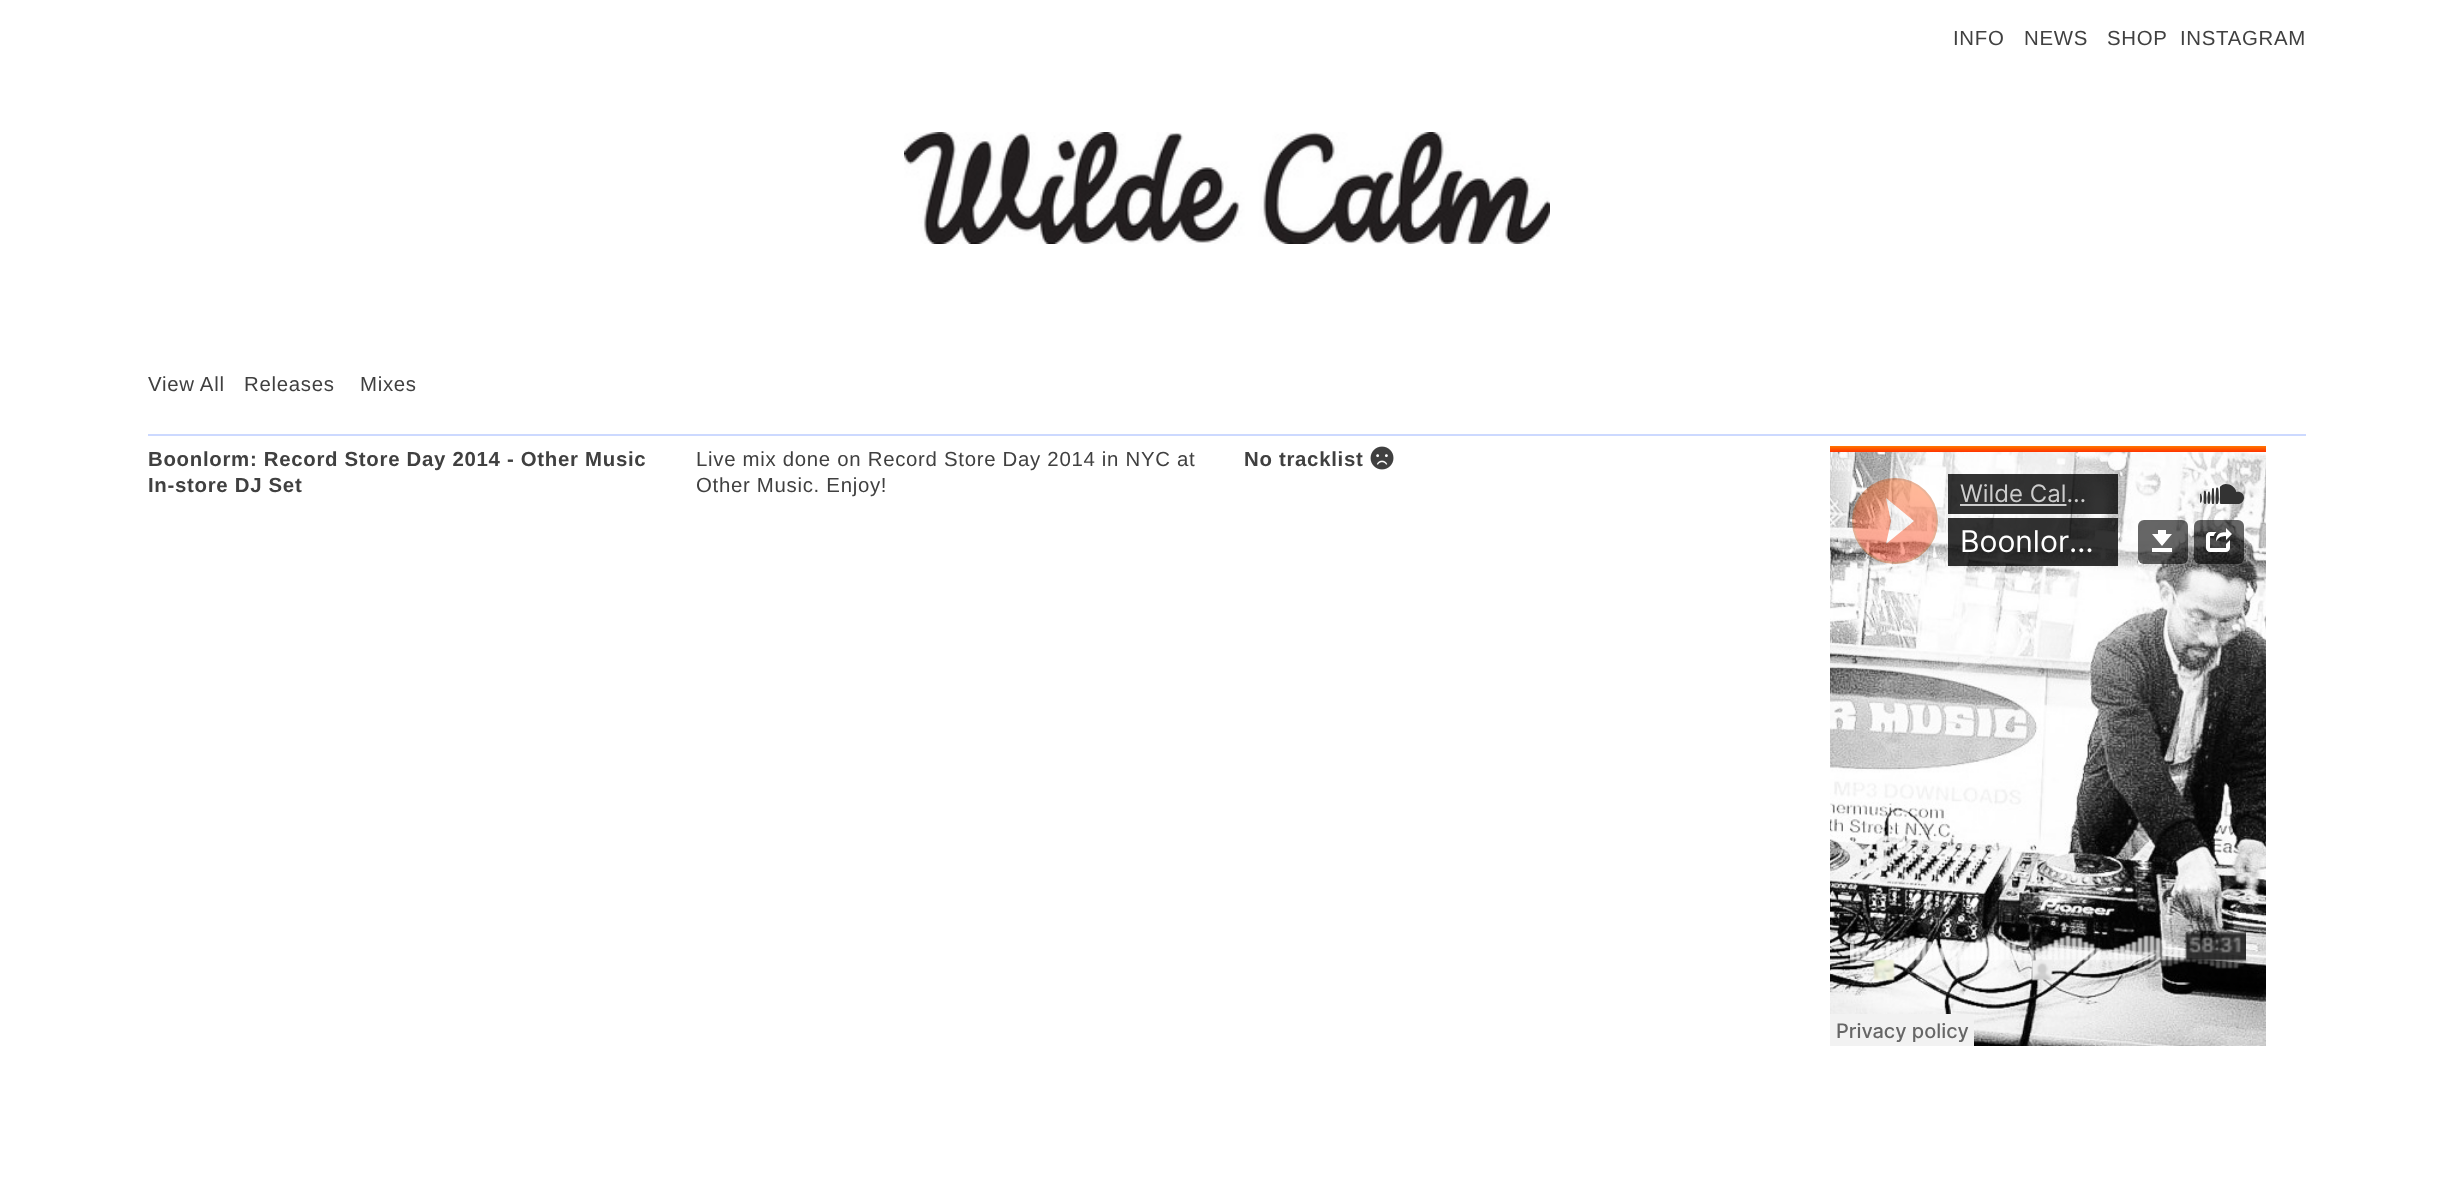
async function draw(canvas) {
  canvas.width = 2454
  canvas.height = 1182
  const ctx = canvas.getContext('2d')
  ctx.miterLimit = 4
  ctx.fontKerning = 'normal'
  async function loadImage(src) {
    const img = new Image()
    img.src = src
    await img.decode()
    return img
  }

  ctx.fillStyle = '#fff'
  ctx.fillRect(0, 0, 2454, 1182)
  ctx.letterSpacing = '0.7px'
  ctx.font = '20.4px Liberation Sans'
  ctx.fillStyle = '#404040'
  ctx.fillText('INFO', 1953, 45)
  ctx.fillText('NEWS', 2024, 45)
  ctx.fillText('SHOP', 2107, 45)
  ctx.fillText('INSTAGRAM', 2180, 45)
  ctx.drawImage(await loadImage('image0.png'), 904, 132, 646, 112)
  ctx.fillText('View All', 148, 391)
  ctx.fillText('Releases', 244, 391)
  ctx.fillText('Mixes', 360, 391)
  ctx.fillStyle = '#ccd9ff'
  ctx.fillRect(148, 434, 2158, 2)
  ctx.font = 'bold 20.4px Liberation Sans'
  ctx.fillStyle = '#404040'
  ctx.fillText('Boonlorm: Record Store Day 2014 - Other Music', 148, 466)
  ctx.fillText('In-store DJ Set', 148, 492)
  ctx.font = '20.4px Liberation Sans'
  ctx.fillText('Live mix done on Record Store Day 2014 in NYC at', 696, 466)
  ctx.fillText('Other Music. Enjoy!', 696, 492)
  ctx.font = 'bold 20.4px Liberation Sans'
  ctx.fillText('No tracklist', 1244, 466)
  ctx.drawImage(await loadImage('image1.png'), 1370, 446, 24, 24)
  ctx.drawImage(await loadImage('image2.png'), 1830, 446, 436, 600)
}

draw(document.querySelector('canvas'))
